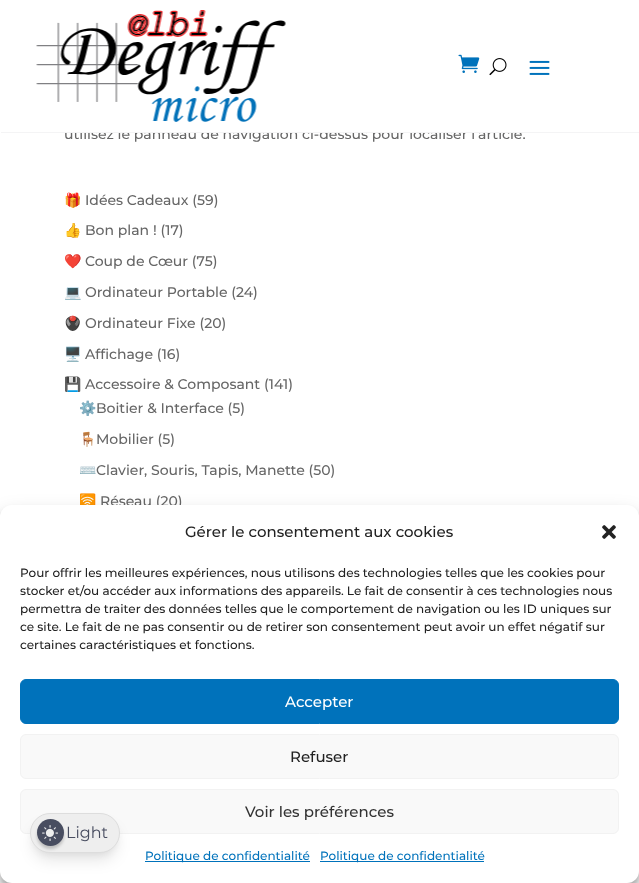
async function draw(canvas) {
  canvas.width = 639
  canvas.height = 883
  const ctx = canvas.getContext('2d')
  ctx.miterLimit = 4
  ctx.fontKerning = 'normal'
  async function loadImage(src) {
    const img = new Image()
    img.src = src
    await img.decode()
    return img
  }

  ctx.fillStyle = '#fff'
  ctx.fillRect(0, 0, 639, 883)
  ctx.font = '500 14px Montserrat'
  ctx.fillStyle = '#666'
  ctx.fillText('utilisez le panneau de navigation ci-dessus pour localiser l\'article.', 64, 139)
  ctx.fillStyle = '#fff'
  ctx.fillRect(65, 128, 455, 4)
  ctx.fillStyle = '#f4f4f5'
  ctx.fillRect(1, 132, 638, 1)
  ctx.drawImage(await loadImage('image0.png'), 36, 10, 250, 112)
  ctx.drawImage(await loadImage('image1.png'), 458, 54, 22, 19)
  ctx.drawImage(await loadImage('image2.png'), 489, 58, 18, 18)
  ctx.drawImage(await loadImage('image3.png'), 529, 60, 21, 15)
  ctx.font = '14px Noto Color Emoji'
  ctx.fillStyle = '#666'
  ctx.fillText('🎁', 64, 205)
  ctx.font = '500 14px Montserrat'
  ctx.fillText('Idées Cadeaux (59)', 85, 205)
  ctx.font = '14px Noto Color Emoji'
  ctx.fillText('👍', 64, 235)
  ctx.font = '500 14px Montserrat'
  ctx.fillText('Bon plan ! (17)', 85, 235)
  ctx.font = '14px Noto Color Emoji'
  ctx.fillText('❤️', 64, 266)
  ctx.font = '500 14px Montserrat'
  ctx.fillText('Coup de Cœur (75)', 85, 266)
  ctx.font = '14px Noto Color Emoji'
  ctx.fillText('💻', 64, 297)
  ctx.font = '500 14px Montserrat'
  ctx.fillText('Ordinateur Portable (24)', 85, 297)
  ctx.font = '14px Noto Color Emoji'
  ctx.fillText('🖲️', 64, 328)
  ctx.font = '500 14px Montserrat'
  ctx.fillText('Ordinateur Fixe (20)', 85, 328)
  ctx.font = '14px Noto Color Emoji'
  ctx.fillText('🖥️', 64, 359)
  ctx.font = '500 14px Montserrat'
  ctx.fillText('Affichage (16)', 85, 359)
  ctx.font = '14px Noto Color Emoji'
  ctx.fillText('💾', 64, 389)
  ctx.font = '500 14px Montserrat'
  ctx.fillText('Accessoire & Composant (141)', 85, 389)
  ctx.font = '14px Noto Color Emoji'
  ctx.fillText('⚙️', 79, 413)
  ctx.font = '500 14px Montserrat'
  ctx.fillText('Boitier & Interface (5)', 96, 413)
  ctx.font = '14px Noto Color Emoji'
  ctx.fillText('🪑', 79, 444)
  ctx.font = '500 14px Montserrat'
  ctx.fillText('Mobilier (5)', 96, 444)
  ctx.font = '14px Noto Color Emoji'
  ctx.fillText('⌨️', 79, 475)
  ctx.font = '500 14px Montserrat'
  ctx.fillText('Clavier, Souris, Tapis, Manette (50)', 96, 475)
  ctx.font = '14px Noto Color Emoji'
  ctx.fillText('🛜', 79, 506)
  ctx.font = '500 14px Montserrat'
  ctx.fillText('Réseau (20)', 100, 506)
  ctx.fillStyle = '#0000003b'
  ctx.filter = 'blur(3px)'
  ctx.beginPath()
  ctx.roundRect(0, 511, 639, 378, 12)
  ctx.fill()
  ctx.filter = 'none'
  ctx.fillStyle = '#00000030'
  ctx.filter = 'blur(10px)'
  ctx.beginPath()
  ctx.roundRect(0, 515, 639, 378, 12)
  ctx.fill()
  ctx.filter = 'none'
  ctx.fillStyle = '#fff'
  ctx.beginPath()
  ctx.roundRect(0, 505, 639, 378, 12)
  ctx.fill()
  ctx.font = '500 15px Montserrat'
  ctx.fillStyle = '#222'
  ctx.fillText('Gérer le consentement aux cookies', 185, 537)
  ctx.drawImage(await loadImage('image4.png'), 602, 525, 14, 14)
  ctx.font = '500 12px Montserrat'
  ctx.fillText('Pour offrir les meilleures expériences, nous utilisons des technologies telles que les cookies pour', 20, 577)
  ctx.fillText('stocker et/ou accéder aux informations des appareils. Le fait de consentir à ces technologies nous', 20, 595)
  ctx.fillText('permettra de traiter des données telles que le comportement de navigation ou les ID uniques sur', 20, 613)
  ctx.fillText('ce site. Le fait de ne pas consentir ou de retirer son consentement peut avoir un effet négatif sur', 20, 631)
  ctx.fillText('certaines caractéristiques et fonctions.', 20, 649)
  ctx.fillStyle = '#0072bb'
  ctx.beginPath()
  ctx.roundRect(20.5, 679.5, 598, 44, 5.5)
  ctx.fill()
  ctx.strokeStyle = '#0072bb'
  ctx.stroke()
  ctx.font = '500 15px Montserrat'
  ctx.fillStyle = '#fff'
  ctx.fillText('Accepter', 285, 707)
  ctx.fillStyle = '#f9f9f9'
  ctx.beginPath()
  ctx.roundRect(20.5, 734.5, 598, 44, 5.5)
  ctx.fill()
  ctx.strokeStyle = '#f2f2f2'
  ctx.stroke()
  ctx.fillStyle = '#222'
  ctx.fillText('Refuser', 290, 762)
  ctx.fillStyle = '#f9f9f9'
  ctx.beginPath()
  ctx.roundRect(20.5, 789.5, 598, 44, 5.5)
  ctx.fill()
  ctx.stroke()
  ctx.fillStyle = '#333'
  ctx.fillText('Voir les préférences', 245, 817)
  ctx.fillStyle = '#0072bb'
  ctx.fillRect(145, 861, 165, 1)
  ctx.font = '500 12px Montserrat'
  ctx.fillText('Politique de confidentialité', 145, 860)
  ctx.fillRect(320, 861, 164, 1)
  ctx.fillText('Politique de confidentialité', 320, 860)
  ctx.fillStyle = '#0000000d'
  ctx.filter = 'blur(3px)'
  ctx.beginPath()
  ctx.roundRect(32, 819, 86, 36, 18)
  ctx.fill()
  ctx.filter = 'none'
  ctx.fillStyle = '#0000001a'
  ctx.filter = 'blur(7.5px)'
  ctx.beginPath()
  ctx.roundRect(33, 826, 84, 34, 17)
  ctx.fill()
  ctx.filter = 'none'
  ctx.fillStyle = '#eee'
  ctx.beginPath()
  ctx.roundRect(30.5, 813.5, 89, 39, 19.5)
  ctx.fill()
  ctx.strokeStyle = '#ddd'
  ctx.stroke()
  ctx.fillStyle = '#00000033'
  ctx.filter = 'blur(1.5px)'
  ctx.beginPath()
  ctx.roundRect(37, 822, 27, 27, 13.5)
  ctx.fill()
  ctx.filter = 'none'
  ctx.fillStyle = '#484d60'
  ctx.beginPath()
  ctx.arc(50.5, 832.5, 13.5, 0, 2 * Math.PI)
  ctx.fill()
  ctx.drawImage(await loadImage('image5.png'), 42, 825, 16, 16)
  ctx.font = '16px Montserrat'
  ctx.fillText('Light', 66, 838)
}

draw(document.querySelector('canvas'))
